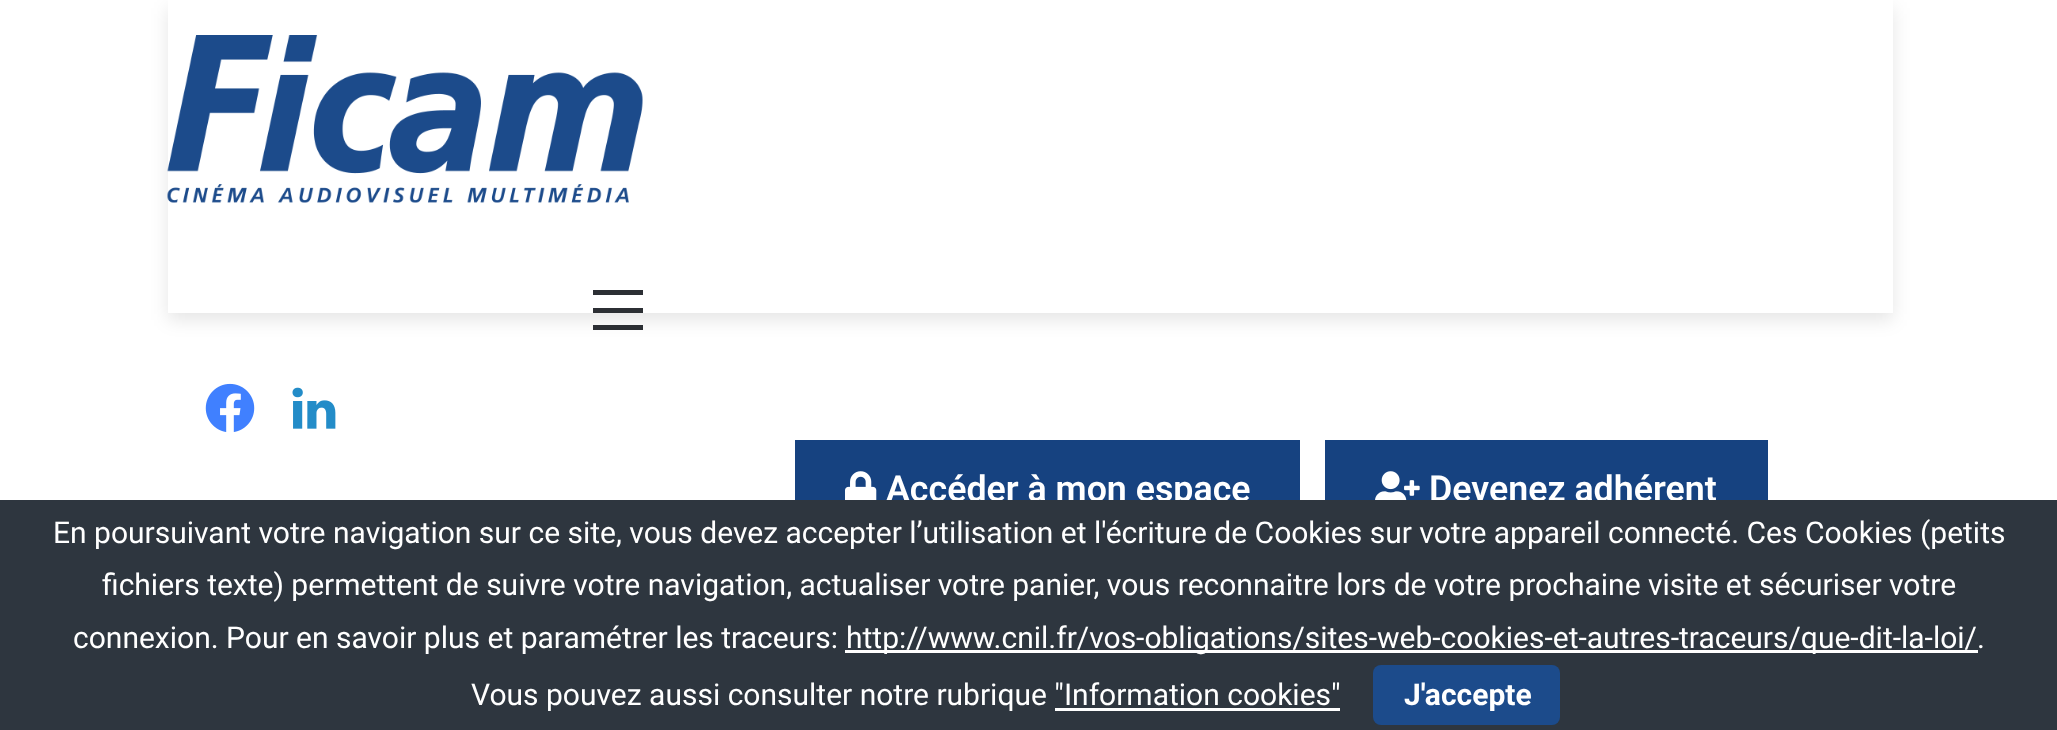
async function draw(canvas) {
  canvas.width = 2057
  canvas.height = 730
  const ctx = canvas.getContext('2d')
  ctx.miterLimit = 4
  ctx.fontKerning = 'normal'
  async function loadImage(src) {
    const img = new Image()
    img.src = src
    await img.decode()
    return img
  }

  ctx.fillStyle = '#fff'
  ctx.fillRect(0, 0, 2057, 730)
  ctx.fillStyle = '#0000001a'
  ctx.filter = 'blur(9px)'
  ctx.beginPath()
  ctx.rect(168, 8, 1725, 312)
  ctx.fill()
  ctx.filter = 'none'
  ctx.fillStyle = '#fff'
  ctx.fillRect(168, 0, 1725, 313)
  ctx.drawImage(await loadImage('image0.png'), 167, 35, 476, 168)
  ctx.fillStyle = '#2c2f34'
  ctx.fillRect(593, 308, 50, 5)
  ctx.fillRect(593, 290, 50, 5)
  ctx.fillRect(593, 325, 50, 5)
  ctx.drawImage(await loadImage('image1.png'), 205, 383, 50, 49)
  ctx.drawImage(await loadImage('image2.png'), 292, 387, 44, 42)
  ctx.fillStyle = '#164280'
  ctx.fillRect(795, 440, 505, 60)
  ctx.drawImage(await loadImage('image3.png'), 845, 471, 32, 29)
  ctx.font = '600 35.75px Roboto'
  ctx.fillStyle = '#fff'
  ctx.fillText('Accéder à mon espace', 886, 501)
  ctx.fillStyle = '#164280'
  ctx.fillRect(1325, 440, 443, 60)
  ctx.drawImage(await loadImage('image4.png'), 1375, 471, 45, 29)
  ctx.fillStyle = '#fff'
  ctx.fillText('Devenez adhérent', 1429, 501)
  ctx.fillStyle = '#2e363f'
  ctx.fillRect(0, 500, 2057, 230)
  ctx.font = '30px Roboto'
  ctx.fillStyle = '#fff'
  ctx.fillText('En poursuivant votre navigation sur ce site, vous devez accepter l’utilisation et l\'écriture de Cookies sur votre appareil connecté. Ces Cookies (petits', 53, 543)
  ctx.fillText('fichiers texte) permettent de suivre votre navigation, actualiser votre panier, vous reconnaitre lors de votre prochaine visite et sécuriser votre', 102, 595)
  ctx.fillText('connexion. Pour en savoir plus et paramétrer les traceurs:', 73, 648)
  ctx.fillRect(845, 650, 1133, 3)
  ctx.fillText('http://www.cnil.fr/vos-obligations/sites-web-cookies-et-autres-traceurs/que-dit-la-loi/.', 846, 648)
  ctx.fillText('Vous pouvez aussi consulter notre rubrique "Information cookies"', 471, 705)
  ctx.fillStyle = '#1c4b8b'
  ctx.beginPath()
  ctx.roundRect(1373, 665, 187, 60, 8)
  ctx.fill()
  ctx.font = 'bold 30px Roboto'
  ctx.fillStyle = '#fff'
  ctx.fillText('J\'accepte', 1404, 705)
  ctx.fillRect(1055, 708, 285, 3)
}

draw(document.querySelector('canvas'))
